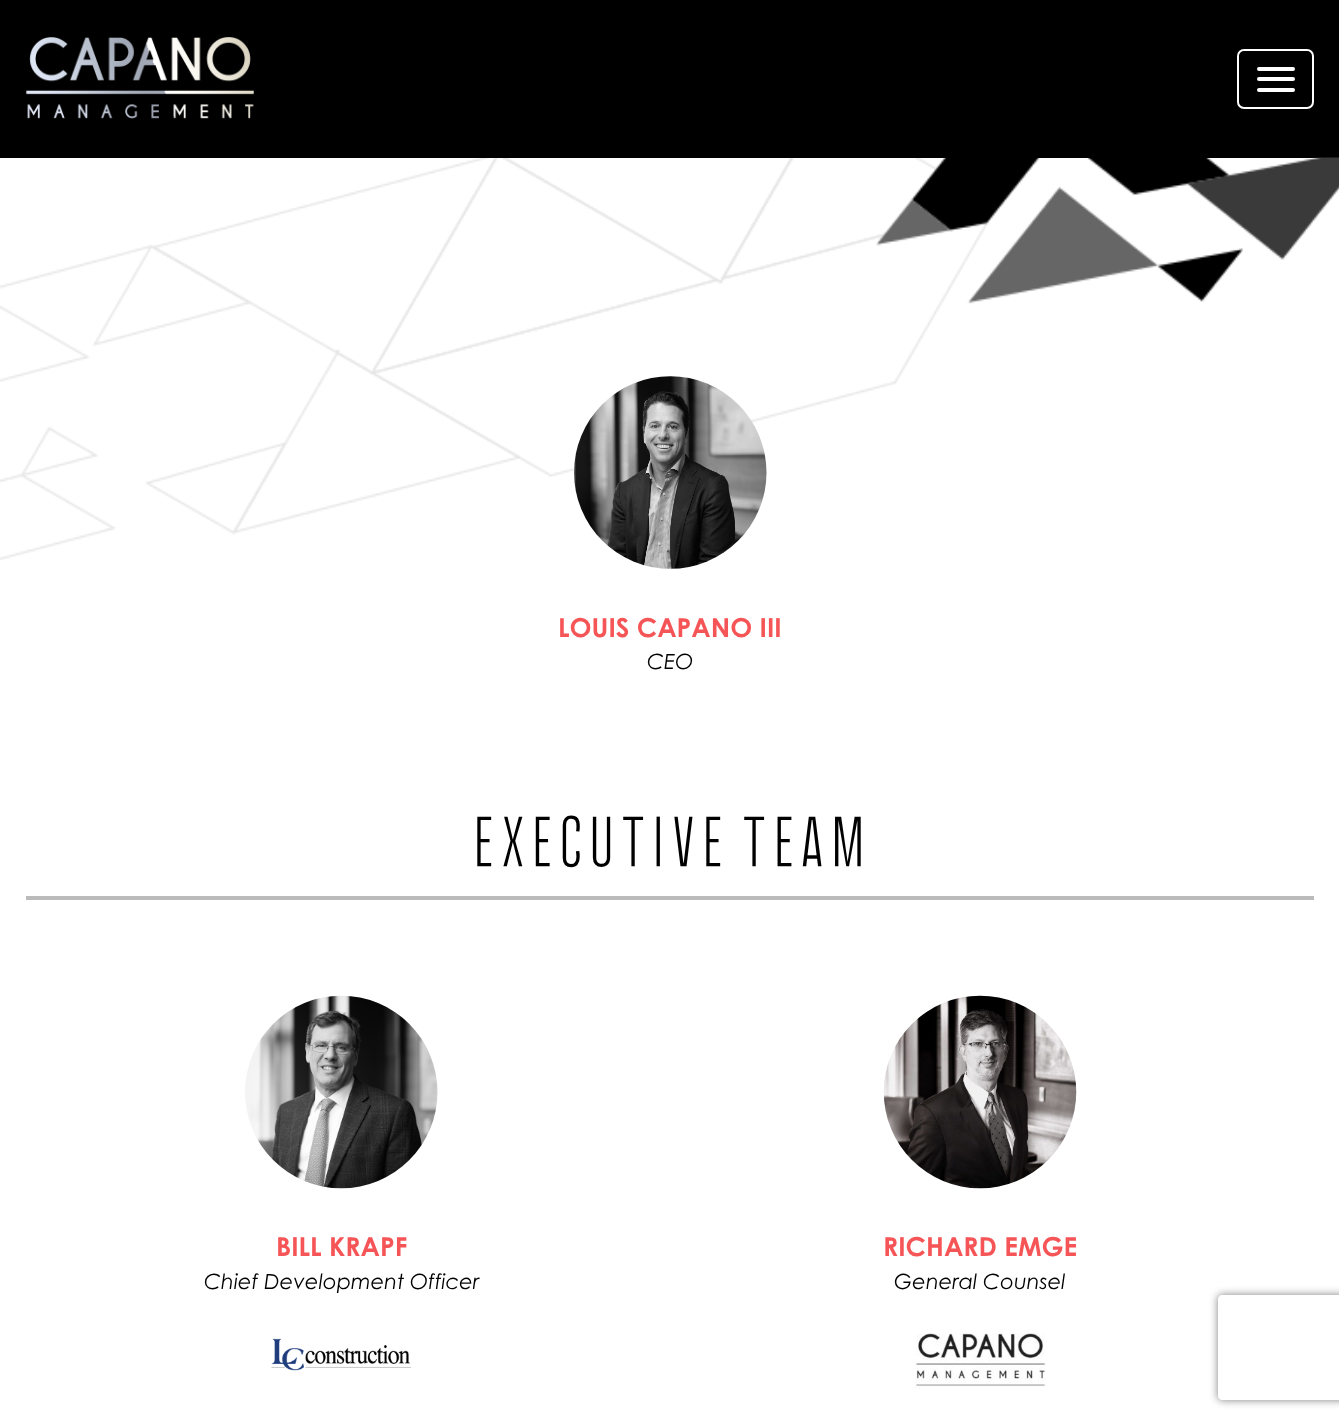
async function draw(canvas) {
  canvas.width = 1339
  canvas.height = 1424
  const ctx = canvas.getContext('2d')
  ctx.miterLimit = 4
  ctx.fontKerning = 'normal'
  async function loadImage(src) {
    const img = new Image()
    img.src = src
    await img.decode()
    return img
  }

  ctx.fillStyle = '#fff'
  ctx.fillRect(0, 0, 1339, 1424)
  ctx.fillStyle = '#000'
  ctx.fillRect(0, 0, 1339, 158)
  ctx.drawImage(await loadImage('image0.png'), 26, 37, 228, 82)
  ctx.beginPath()
  ctx.roundRect(1238, 50, 75, 58, 6)
  ctx.strokeStyle = '#fff'
  ctx.lineWidth = 2
  ctx.stroke()
  ctx.fillStyle = '#fff'
  ctx.beginPath()
  ctx.roundRect(1257, 67, 38, 4, 2)
  ctx.fill()
  ctx.beginPath()
  ctx.roundRect(1257, 77, 38, 4, 2)
  ctx.fill()
  ctx.beginPath()
  ctx.roundRect(1257, 88, 38, 4, 2)
  ctx.fill()
  ctx.drawImage(await loadImage('image1.png'), 0, 157, 1339, 403)
  ctx.drawImage(await loadImage('image2.png'), 574, 376, 193, 193)
  ctx.font = 'bold 26.25px Century Gothic'
  ctx.fillStyle = '#f65557'
  ctx.fillText('LOUIS CAPANO III', 558, 637)
  ctx.font = 'italic 21px Century Gothic'
  ctx.fillStyle = '#000'
  ctx.fillText('CEO', 647, 669)
  ctx.fillStyle = '#bbb'
  ctx.fillRect(26, 896, 1288, 4)
  ctx.font = 'bold 70px "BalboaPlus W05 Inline"'
  ctx.fillStyle = '#000'
  ctx.fillText('EXECUTIVE TEAM', 471, 869)
  ctx.drawImage(await loadImage('image3.png'), 245, 995, 193, 194)
  ctx.font = 'bold 26.25px Century Gothic'
  ctx.fillStyle = '#f65557'
  ctx.fillText('BILL KRAPF', 276, 1256)
  ctx.font = 'italic 21px Century Gothic'
  ctx.fillStyle = '#000'
  ctx.fillText('Chief Development Officer', 204, 1289)
  ctx.drawImage(await loadImage('image4.png'), 271, 1338, 141, 33)
  ctx.drawImage(await loadImage('image5.png'), 883, 995, 194, 194)
  ctx.font = 'bold 26.25px Century Gothic'
  ctx.fillStyle = '#f65557'
  ctx.fillText('RICHARD EMGE', 883, 1256)
  ctx.font = 'italic 21px Century Gothic'
  ctx.fillStyle = '#000'
  ctx.fillText('General Counsel', 894, 1289)
  ctx.drawImage(await loadImage('image6.png'), 915, 1333, 131, 56)
  ctx.save()
  ctx.beginPath()
  ctx.moveTo(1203, 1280)
  ctx.lineTo(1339, 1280)
  ctx.lineTo(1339, 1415)
  ctx.lineTo(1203, 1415)
  ctx.closePath()
  ctx.moveTo(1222, 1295)
  ctx.lineTo(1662, 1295)
  ctx.bezierCurveTo(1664, 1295, 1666, 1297, 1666, 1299)
  ctx.lineTo(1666, 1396)
  ctx.bezierCurveTo(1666, 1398, 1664, 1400, 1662, 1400)
  ctx.lineTo(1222, 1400)
  ctx.bezierCurveTo(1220, 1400, 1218, 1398, 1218, 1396)
  ctx.lineTo(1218, 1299)
  ctx.bezierCurveTo(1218, 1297, 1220, 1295, 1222, 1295)
  ctx.closePath()
  ctx.clip('evenodd')
  ctx.fillStyle = '#808080'
  ctx.filter = 'blur(4.5px)'
  ctx.beginPath()
  ctx.roundRect(1218, 1295, 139, 105, 4)
  ctx.fill()
  ctx.filter = 'none'
  ctx.restore()
}

draw(document.querySelector('canvas'))
